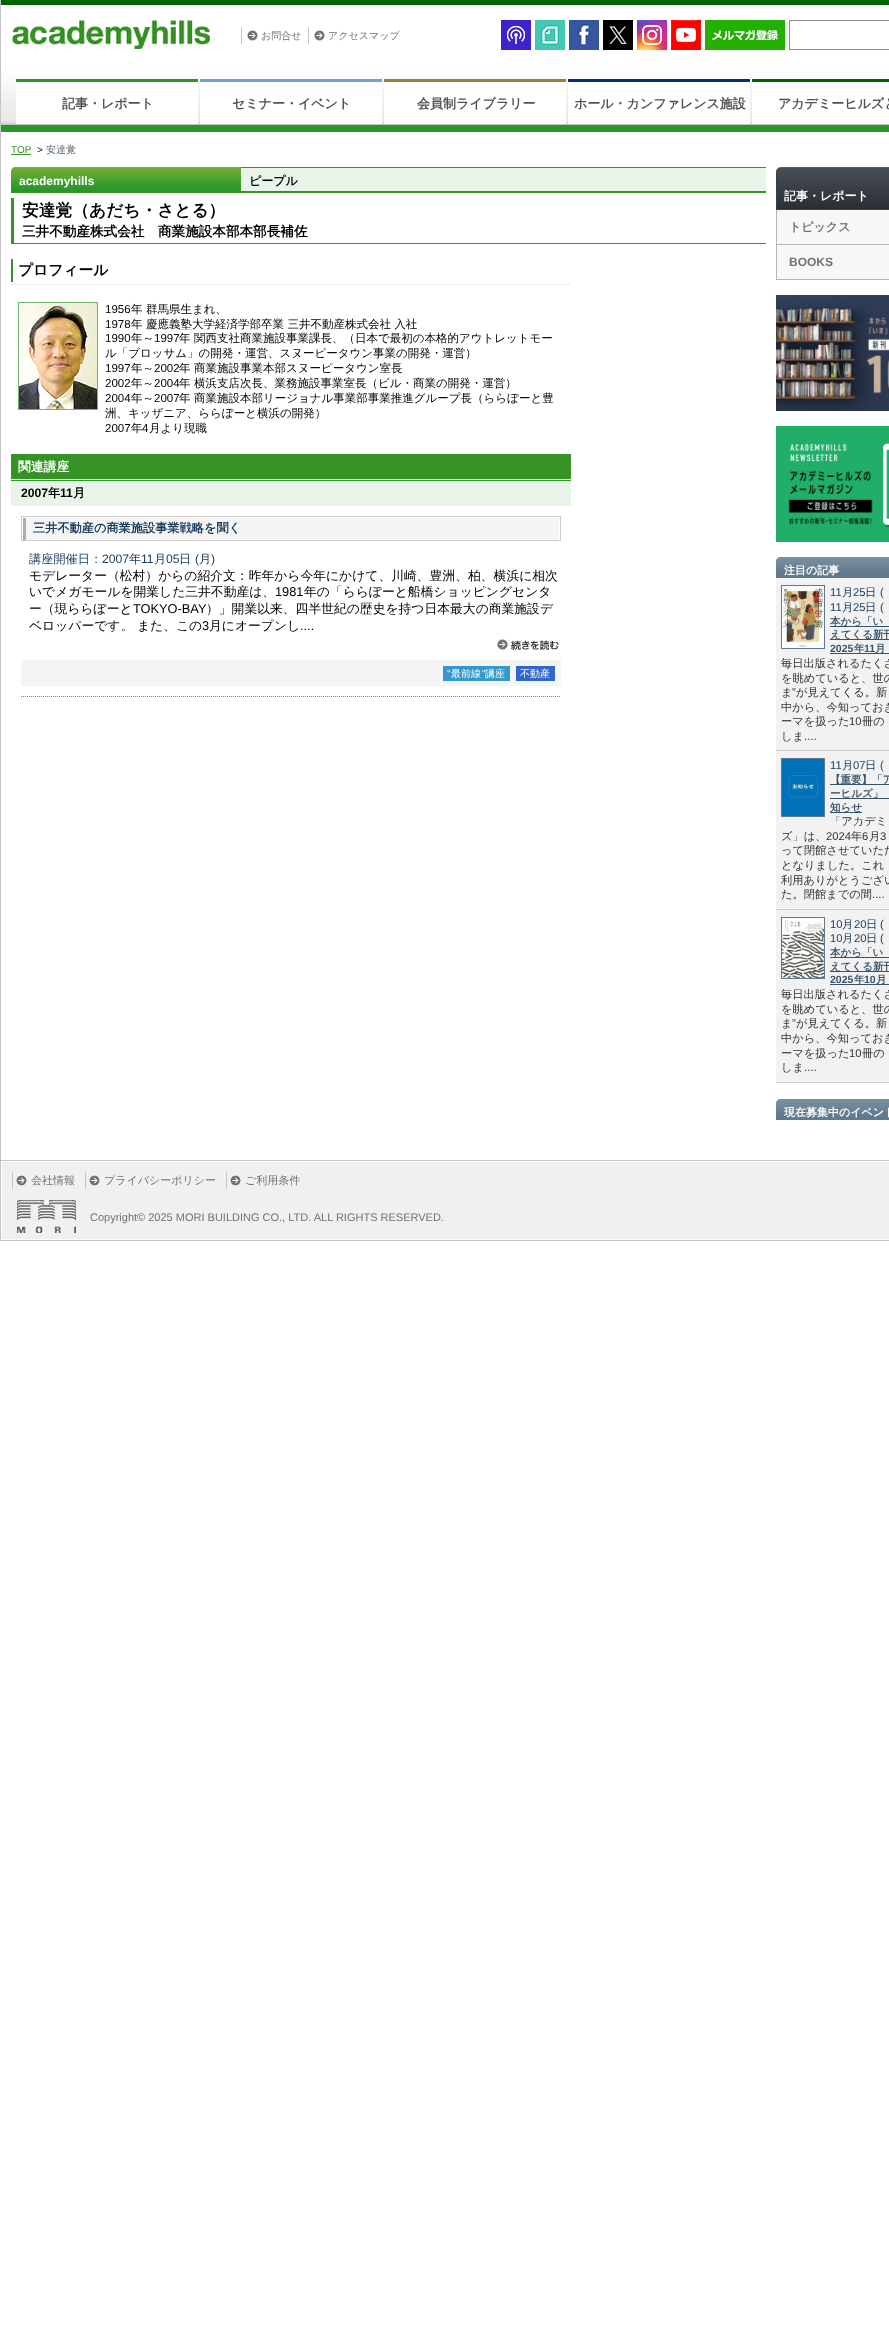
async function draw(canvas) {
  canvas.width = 889
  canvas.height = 2340
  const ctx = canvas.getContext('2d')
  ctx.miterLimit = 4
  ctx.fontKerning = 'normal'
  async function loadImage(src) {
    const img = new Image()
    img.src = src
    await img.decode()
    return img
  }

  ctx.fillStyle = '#fff'
  ctx.fillRect(0, 0, 889, 2340)
  ctx.fillStyle = '#c5c5c5'
  ctx.fillRect(0, 1240, 889, 1)
  ctx.fillRect(0, 0, 1, 1241)
  ctx.drawImage(await loadImage('image0.png'), 1, 0, 888, 125)
  ctx.drawImage(await loadImage('image1.png'), 12, 20, 198, 29)
  ctx.fillRect(241, 27, 1, 17)
  ctx.drawImage(await loadImage('image2.png'), 247, 30, 11, 11)
  ctx.font = '500 10px WenQuanYi Zen Hei'
  ctx.fillStyle = '#717171'
  ctx.fillText('お問合せ', 261, 39)
  ctx.fillStyle = '#c5c5c5'
  ctx.fillRect(308, 27, 1, 17)
  ctx.drawImage(await loadImage('image2.png'), 314, 30, 11, 11)
  ctx.fillStyle = '#717171'
  ctx.fillText('アクセスマップ', 328, 39)
  ctx.drawImage(await loadImage('image3.png'), 501, 20, 30, 30)
  ctx.drawImage(await loadImage('image4.png'), 535, 20, 30, 30)
  ctx.drawImage(await loadImage('image5.png'), 569, 20, 30, 30)
  ctx.drawImage(await loadImage('image6.png'), 603, 20, 30, 30)
  ctx.drawImage(await loadImage('image7.png'), 637, 20, 30, 30)
  ctx.drawImage(await loadImage('image8.png'), 671, 20, 30, 30)
  ctx.drawImage(await loadImage('image9.png'), 705, 20, 80, 30)
  ctx.strokeStyle = '#8f8f8e'
  ctx.strokeRect(789.5, 20.5, 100, 29)
  ctx.fillStyle = '#fff'
  ctx.fillRect(16, 82, 182, 42)
  ctx.fillStyle = '#289728'
  ctx.fillRect(16, 79, 182, 3)
  ctx.font = 'bold 13px WenQuanYi Zen Hei'
  ctx.fillStyle = '#515151'
  ctx.fillText('記事・レポート', 62, 108)
  ctx.fillStyle = '#fff'
  ctx.fillRect(200, 82, 182, 42)
  ctx.fillStyle = '#71a1d8'
  ctx.fillRect(200, 79, 182, 3)
  ctx.fillStyle = '#515151'
  ctx.fillText('セミナー・イベント', 232, 108)
  ctx.fillStyle = '#fff'
  ctx.fillRect(384, 82, 182, 42)
  ctx.fillStyle = '#9c7f3e'
  ctx.fillRect(384, 79, 182, 3)
  ctx.fillStyle = '#515151'
  ctx.fillText('会員制ライブラリー', 417, 108)
  ctx.fillStyle = '#fff'
  ctx.fillRect(568, 82, 182, 42)
  ctx.fillStyle = '#00307c'
  ctx.fillRect(568, 79, 182, 3)
  ctx.fillStyle = '#515151'
  ctx.fillText('ホール・カンファレンス施設', 574, 108)
  ctx.fillStyle = '#fff'
  ctx.fillRect(752, 82, 137, 42)
  ctx.fillStyle = '#016600'
  ctx.fillRect(752, 79, 137, 3)
  ctx.fillStyle = '#515151'
  ctx.fillText('アカデミーヒルズと', 778, 108)
  ctx.fillStyle = '#289728'
  ctx.fillRect(1, 125, 888, 7)
  ctx.font = '10px Liberation Sans'
  ctx.fillStyle = '#369224'
  ctx.fillText('TOP', 11, 153)
  ctx.fillRect(11, 154, 20, 1)
  ctx.fillStyle = '#000'
  ctx.fillText('>', 37, 153)
  ctx.font = '500 10px WenQuanYi Zen Hei'
  ctx.fillStyle = '#505d68'
  ctx.fillText('安達覚', 46, 153)
  ctx.fillStyle = '#c5c5c5'
  ctx.fillRect(1, 1160, 888, 1)
  ctx.fillStyle = '#e9f4e9'
  ctx.fillRect(241, 168, 525, 23)
  ctx.fillStyle = '#369224'
  ctx.fillRect(11, 191, 755, 2)
  ctx.drawImage(await loadImage('image10.png'), 11, 167, 230, 24)
  ctx.font = 'bold 12px Liberation Sans'
  ctx.fillStyle = '#fff'
  ctx.fillText('academyhills', 19, 185)
  ctx.fillStyle = '#289728'
  ctx.fillRect(241, 167, 525, 1)
  ctx.font = 'bold 12px WenQuanYi Zen Hei'
  ctx.fillStyle = '#000'
  ctx.fillText('ピープル', 249, 185)
  ctx.fillStyle = '#369224'
  ctx.fillRect(11, 243, 755, 1)
  ctx.fillRect(11, 198, 3, 46)
  ctx.font = 'bold 16.75px WenQuanYi Zen Hei'
  ctx.fillStyle = '#000'
  ctx.fillText('安達覚（あだち・さとる）', 22, 216)
  ctx.font = 'bold 13.6px WenQuanYi Zen Hei'
  ctx.fillText('三井不動産株式会社　商業施設本部本部長補佐', 22, 236)
  ctx.fillStyle = '#efefef'
  ctx.fillRect(11, 284, 560, 1)
  ctx.fillStyle = '#369224'
  ctx.fillRect(11, 259, 2, 23)
  ctx.font = 'bold 14.75px WenQuanYi Zen Hei'
  ctx.fillStyle = '#000'
  ctx.fillText('プロフィール', 18, 275)
  ctx.strokeStyle = '#71b571'
  ctx.strokeRect(18.5, 302.5, 79, 107)
  ctx.drawImage(await loadImage('image11.png'), 19, 303, 78, 106)
  ctx.font = '11.5px Liberation Sans'
  ctx.fillText('1956', 105, 313)
  ctx.font = '500 11.5px WenQuanYi Zen Hei'
  ctx.fillText('年 群馬県生まれ、', 131, 313)
  ctx.font = '11.5px Liberation Sans'
  ctx.fillText('1978', 105, 328)
  ctx.font = '500 11.5px WenQuanYi Zen Hei'
  ctx.fillText('年 慶應義塾大学経済学部卒業 三井不動産株式会社 入社', 131, 328)
  ctx.font = '11.5px Liberation Sans'
  ctx.fillText('1990', 105, 342)
  ctx.font = '500 11.5px WenQuanYi Zen Hei'
  ctx.fillText('年～', 131, 342)
  ctx.font = '11.5px Liberation Sans'
  ctx.fillText('1997', 154, 342)
  ctx.font = '500 11.5px WenQuanYi Zen Hei'
  ctx.fillText('年 関西支社商業施設事業課長、（日本で最初の本格的アウトレットモー', 179, 342)
  ctx.fillText('ル「ブロッサム」の開発・運営、スヌーピータウン事業の開発・運営）', 105, 357)
  ctx.font = '11.5px Liberation Sans'
  ctx.fillText('1997', 105, 372)
  ctx.font = '500 11.5px WenQuanYi Zen Hei'
  ctx.fillText('年～', 131, 372)
  ctx.font = '11.5px Liberation Sans'
  ctx.fillText('2002', 154, 372)
  ctx.font = '500 11.5px WenQuanYi Zen Hei'
  ctx.fillText('年 商業施設事業本部スヌーピータウン室長', 179, 372)
  ctx.font = '11.5px Liberation Sans'
  ctx.fillText('2002', 105, 387)
  ctx.font = '500 11.5px WenQuanYi Zen Hei'
  ctx.fillText('年～', 131, 387)
  ctx.font = '11.5px Liberation Sans'
  ctx.fillText('2004', 154, 387)
  ctx.font = '500 11.5px WenQuanYi Zen Hei'
  ctx.fillText('年 横浜支店次長、業務施設事業室長（ビル・商業の開発・運営）', 179, 387)
  ctx.font = '11.5px Liberation Sans'
  ctx.fillText('2004', 105, 402)
  ctx.font = '500 11.5px WenQuanYi Zen Hei'
  ctx.fillText('年～', 131, 402)
  ctx.font = '11.5px Liberation Sans'
  ctx.fillText('2007', 154, 402)
  ctx.font = '500 11.5px WenQuanYi Zen Hei'
  ctx.fillText('年 商業施設本部リージョナル事業部事業推進グループ長（ららぽーと豊', 179, 402)
  ctx.fillText('洲、キッザニア、ららぽーと横浜の開発）', 105, 417)
  ctx.font = '11.5px Liberation Sans'
  ctx.fillText('2007', 105, 432)
  ctx.font = '500 11.5px WenQuanYi Zen Hei'
  ctx.fillText('年', 131, 432)
  ctx.font = '11.5px Liberation Sans'
  ctx.fillText('4', 142, 432)
  ctx.font = '500 11.5px WenQuanYi Zen Hei'
  ctx.fillText('月より現職', 149, 432)
  ctx.fillStyle = '#369224'
  ctx.fillRect(11, 454, 560, 25)
  ctx.font = 'bold 12.8px WenQuanYi Zen Hei'
  ctx.fillStyle = '#fff'
  ctx.fillText('関連講座', 18, 471)
  ctx.fillStyle = '#e9f4e9'
  ctx.fillRect(11, 479, 560, 1)
  ctx.fillRect(11, 481, 560, 25)
  ctx.fillStyle = '#289728'
  ctx.fillRect(11, 480, 560, 1)
  ctx.font = 'bold 12.2px Liberation Sans'
  ctx.fillStyle = '#000'
  ctx.fillText('2007', 21, 497)
  ctx.font = 'bold 12.2px WenQuanYi Zen Hei'
  ctx.fillText('年', 48, 497)
  ctx.font = 'bold 12.2px Liberation Sans'
  ctx.fillText('11', 60, 497)
  ctx.font = 'bold 12.2px WenQuanYi Zen Hei'
  ctx.fillText('月', 73, 497)
  ctx.strokeStyle = '#ccc'
  ctx.strokeRect(21.5, 516.5, 539, 24)
  ctx.fillStyle = '#f5f5f5'
  ctx.fillRect(26, 518, 533, 22)
  ctx.fillStyle = '#adadad'
  ctx.fillRect(23, 517, 3, 23)
  ctx.fillStyle = '#fff'
  ctx.fillRect(22, 517, 4, 1)
  ctx.fillStyle = '#183a5c'
  ctx.fillText('三井不動産の商業施設事業戦略を聞く', 33, 532)
  ctx.font = '500 12.2px WenQuanYi Zen Hei'
  ctx.fillText('講座開催日：', 29, 563)
  ctx.font = '12.2px Liberation Sans'
  ctx.fillText('2007', 102, 563)
  ctx.font = '500 12.2px WenQuanYi Zen Hei'
  ctx.fillText('年', 129, 563)
  ctx.font = '12.2px Liberation Sans'
  ctx.fillText('11', 141, 563)
  ctx.font = '500 12.2px WenQuanYi Zen Hei'
  ctx.fillText('月', 154, 563)
  ctx.font = '12.2px Liberation Sans'
  ctx.fillText('05', 166, 563)
  ctx.font = '500 12.2px WenQuanYi Zen Hei'
  ctx.fillText('日', 179, 563)
  ctx.font = '12.2px Liberation Sans'
  ctx.fillText('(', 195, 563)
  ctx.font = '500 12.2px WenQuanYi Zen Hei'
  ctx.fillText('月', 199, 563)
  ctx.font = '12.2px Liberation Sans'
  ctx.fillText(')', 211, 563)
  ctx.font = '500 12.8px WenQuanYi Zen Hei'
  ctx.fillStyle = '#000'
  ctx.fillText('モデレーター（松村）からの紹介文：昨年から今年にかけて、川崎、豊洲、柏、横浜に相次', 29, 580)
  ctx.fillText('いでメガモールを開業した三井不動産は、', 29, 596)
  ctx.font = '12.8px Liberation Sans'
  ctx.fillText('1981', 275, 596)
  ctx.font = '500 12.8px WenQuanYi Zen Hei'
  ctx.fillText('年の「ららぽーと船橋ショッピングセンタ', 304, 596)
  ctx.fillText('ー（現ららぽーと', 29, 613)
  ctx.font = '12.8px Liberation Sans'
  ctx.fillText('TOKYO-BAY', 133, 613)
  ctx.font = '500 12.8px WenQuanYi Zen Hei'
  ctx.fillText('）」開業以来、四半世紀の歴史を持つ日本最大の商業施設デ', 206, 613)
  ctx.fillText('ベロッパーです。', 29, 630)
  ctx.fillText('また、この', 137, 630)
  ctx.font = '12.8px Liberation Sans'
  ctx.fillText('3', 202, 630)
  ctx.font = '500 12.8px WenQuanYi Zen Hei'
  ctx.fillText('月にオープンし', 209, 630)
  ctx.font = '12.8px Liberation Sans'
  ctx.fillText('....', 300, 630)
  ctx.drawImage(await loadImage('image12.png'), 497, 639, 62, 11)
  ctx.fillStyle = '#f5f5f5'
  ctx.fillRect(21, 660, 540, 26)
  ctx.fillStyle = '#39c'
  ctx.fillRect(443, 666, 67, 15)
  ctx.font = '10px Liberation Sans'
  ctx.fillStyle = '#fff'
  ctx.fillText('"', 447, 677)
  ctx.font = '500 10px WenQuanYi Zen Hei'
  ctx.fillText('最前線', 451, 677)
  ctx.font = '10px Liberation Sans'
  ctx.fillText('"', 482, 677)
  ctx.font = '500 10px WenQuanYi Zen Hei'
  ctx.fillText('講座', 485, 677)
  ctx.fillStyle = '#36c'
  ctx.fillRect(516, 666, 39, 15)
  ctx.fillStyle = '#fff'
  ctx.fillText('不動産', 520, 677)
  ctx.drawImage(await loadImage('image13.png'), 21, 696, 539, 1)
  ctx.drawImage(await loadImage('image14.png'), 776, 167, 113, 43)
  ctx.font = 'bold 12px WenQuanYi Zen Hei'
  ctx.fillText('記事・レポート', 784, 200)
  ctx.fillStyle = '#f7f7f7'
  ctx.fillRect(777, 210, 112, 34)
  ctx.fillStyle = '#b0b6bd'
  ctx.fillRect(776, 244, 113, 1)
  ctx.fillRect(776, 210, 1, 35)
  ctx.fillStyle = '#717171'
  ctx.fillText('トピックス', 789, 231)
  ctx.fillStyle = '#f7f7f7'
  ctx.fillRect(777, 245, 112, 34)
  ctx.fillStyle = '#b0b6bd'
  ctx.fillRect(776, 279, 113, 1)
  ctx.fillRect(776, 245, 1, 35)
  ctx.font = 'bold 12px Liberation Sans'
  ctx.fillStyle = '#717171'
  ctx.fillText('BOOKS', 789, 266)
  ctx.drawImage(await loadImage('image15.png'), 776, 295, 113, 116)
  ctx.drawImage(await loadImage('image16.png'), 776, 426, 113, 116)
  ctx.drawImage(await loadImage('image17.png'), 776, 557, 113, 21)
  ctx.font = 'bold 11px WenQuanYi Zen Hei'
  ctx.fillStyle = '#fff'
  ctx.fillText('注目の記事', 784, 574)
  ctx.fillStyle = '#f2f2f2'
  ctx.fillRect(776, 578, 113, 172)
  ctx.fillStyle = '#ccc'
  ctx.fillRect(776, 750, 113, 1)
  ctx.strokeStyle = '#61798d'
  ctx.strokeRect(781.5, 585.5, 43, 63)
  ctx.drawImage(await loadImage('image18.png'), 782, 586, 42, 62)
  ctx.font = '11.25px Liberation Sans'
  ctx.fillStyle = '#183a5c'
  ctx.fillText('11', 830, 596)
  ctx.font = '500 11.25px WenQuanYi Zen Hei'
  ctx.fillText('月', 842, 596)
  ctx.font = '11.25px Liberation Sans'
  ctx.fillText('25', 853, 596)
  ctx.font = '500 11.25px WenQuanYi Zen Hei'
  ctx.fillText('日', 865, 596)
  ctx.font = '11.25px Liberation Sans'
  ctx.fillText('(', 880, 596)
  ctx.fillText('11', 830, 611)
  ctx.font = '500 11.25px WenQuanYi Zen Hei'
  ctx.fillText('月', 842, 611)
  ctx.font = '11.25px Liberation Sans'
  ctx.fillText('25', 853, 611)
  ctx.font = '500 11.25px WenQuanYi Zen Hei'
  ctx.fillText('日', 865, 611)
  ctx.font = '11.25px Liberation Sans'
  ctx.fillText('(', 880, 611)
  ctx.fillStyle = '#38536a'
  ctx.fillRect(830, 626, 59, 1)
  ctx.font = 'bold 10.5px WenQuanYi Zen Hei'
  ctx.fillText('本から「い', 830, 625)
  ctx.fillRect(830, 639, 59, 1)
  ctx.fillText('えてくる新刊', 830, 638)
  ctx.font = 'bold 10.5px Liberation Sans'
  ctx.fillText('2025', 830, 652)
  ctx.fillRect(830, 653, 59, 1)
  ctx.font = 'bold 10.5px WenQuanYi Zen Hei'
  ctx.fillText('年', 854, 652)
  ctx.font = 'bold 10.5px Liberation Sans'
  ctx.fillText('11', 864, 652)
  ctx.font = 'bold 10.5px WenQuanYi Zen Hei'
  ctx.fillText('月', 875, 652)
  ctx.font = '500 11.25px WenQuanYi Zen Hei'
  ctx.fillStyle = '#333'
  ctx.fillText('毎日出版されるたくさ', 781, 667)
  ctx.fillText('を眺めていると、世の', 781, 682)
  ctx.fillText('ま', 781, 696)
  ctx.font = '11.25px Liberation Sans'
  ctx.fillText('”', 792, 696)
  ctx.font = '500 11.25px WenQuanYi Zen Hei'
  ctx.fillText('が見えてくる。新', 796, 696)
  ctx.fillText('中から、今知っておき', 781, 711)
  ctx.fillText('ーマを扱った', 781, 725)
  ctx.font = '11.25px Liberation Sans'
  ctx.fillText('10', 849, 725)
  ctx.font = '500 11.25px WenQuanYi Zen Hei'
  ctx.fillText('冊の', 862, 725)
  ctx.fillText('しま', 781, 740)
  ctx.font = '11.25px Liberation Sans'
  ctx.fillText('....', 804, 740)
  ctx.fillStyle = '#f2f2f2'
  ctx.fillRect(776, 751, 113, 158)
  ctx.fillStyle = '#ccc'
  ctx.fillRect(776, 909, 113, 1)
  ctx.strokeRect(781.5, 758.5, 43, 58)
  ctx.drawImage(await loadImage('image19.png'), 782, 759, 42, 57)
  ctx.fillStyle = '#183a5c'
  ctx.fillText('11', 830, 769)
  ctx.font = '500 11.25px WenQuanYi Zen Hei'
  ctx.fillText('月', 842, 769)
  ctx.font = '11.25px Liberation Sans'
  ctx.fillText('07', 853, 769)
  ctx.font = '500 11.25px WenQuanYi Zen Hei'
  ctx.fillText('日', 865, 769)
  ctx.font = '11.25px Liberation Sans'
  ctx.fillText('(', 880, 769)
  ctx.fillStyle = '#38536a'
  ctx.fillRect(830, 784, 59, 1)
  ctx.font = 'bold 10.5px WenQuanYi Zen Hei'
  ctx.fillText('【重要】「ア', 830, 783)
  ctx.fillText('ーヒルズ」', 830, 797)
  ctx.fillRect(830, 798, 59, 1)
  ctx.fillRect(830, 812, 32, 1)
  ctx.fillText('知らせ', 830, 811)
  ctx.font = '500 11.25px WenQuanYi Zen Hei'
  ctx.fillStyle = '#333'
  ctx.fillText('「アカデミ', 830, 825)
  ctx.fillText('ズ」は、', 781, 840)
  ctx.font = '11.25px Liberation Sans'
  ctx.fillText('2024', 826, 840)
  ctx.font = '500 11.25px WenQuanYi Zen Hei'
  ctx.fillText('年', 851, 840)
  ctx.font = '11.25px Liberation Sans'
  ctx.fillText('6', 862, 840)
  ctx.font = '500 11.25px WenQuanYi Zen Hei'
  ctx.fillText('月', 869, 840)
  ctx.font = '11.25px Liberation Sans'
  ctx.fillText('3', 880, 840)
  ctx.font = '500 11.25px WenQuanYi Zen Hei'
  ctx.fillText('って閉館させていただ', 781, 854)
  ctx.fillText('となりました。これ', 781, 869)
  ctx.fillText('利用ありがとうござい', 781, 884)
  ctx.fillText('た。閉館までの間', 781, 898)
  ctx.font = '11.25px Liberation Sans'
  ctx.fillText('....', 872, 898)
  ctx.fillStyle = '#f2f2f2'
  ctx.fillRect(776, 910, 113, 172)
  ctx.fillStyle = '#ccc'
  ctx.fillRect(776, 1082, 113, 1)
  ctx.strokeRect(781.5, 917.5, 43, 61)
  ctx.drawImage(await loadImage('image20.png'), 782, 918, 42, 60)
  ctx.fillStyle = '#183a5c'
  ctx.fillText('10', 830, 928)
  ctx.font = '500 11.25px WenQuanYi Zen Hei'
  ctx.fillText('月', 842, 928)
  ctx.font = '11.25px Liberation Sans'
  ctx.fillText('20', 854, 928)
  ctx.font = '500 11.25px WenQuanYi Zen Hei'
  ctx.fillText('日', 866, 928)
  ctx.font = '11.25px Liberation Sans'
  ctx.fillText('(', 880, 928)
  ctx.fillText('10', 830, 942)
  ctx.font = '500 11.25px WenQuanYi Zen Hei'
  ctx.fillText('月', 842, 942)
  ctx.font = '11.25px Liberation Sans'
  ctx.fillText('20', 854, 942)
  ctx.font = '500 11.25px WenQuanYi Zen Hei'
  ctx.fillText('日', 866, 942)
  ctx.font = '11.25px Liberation Sans'
  ctx.fillText('(', 880, 942)
  ctx.fillStyle = '#38536a'
  ctx.fillRect(830, 957, 59, 1)
  ctx.font = 'bold 10.5px WenQuanYi Zen Hei'
  ctx.fillText('本から「い', 830, 956)
  ctx.fillRect(830, 971, 59, 1)
  ctx.fillText('えてくる新刊', 830, 970)
  ctx.font = 'bold 10.5px Liberation Sans'
  ctx.fillText('2025', 830, 983)
  ctx.fillRect(830, 984, 59, 1)
  ctx.font = 'bold 10.5px WenQuanYi Zen Hei'
  ctx.fillText('年', 854, 983)
  ctx.font = 'bold 10.5px Liberation Sans'
  ctx.fillText('10', 864, 983)
  ctx.font = 'bold 10.5px WenQuanYi Zen Hei'
  ctx.fillText('月', 876, 983)
  ctx.font = '500 11.25px WenQuanYi Zen Hei'
  ctx.fillStyle = '#333'
  ctx.fillText('毎日出版されるたくさ', 781, 998)
  ctx.fillText('を眺めていると、世の', 781, 1013)
  ctx.fillText('ま', 781, 1027)
  ctx.font = '11.25px Liberation Sans'
  ctx.fillText('”', 792, 1027)
  ctx.font = '500 11.25px WenQuanYi Zen Hei'
  ctx.fillText('が見えてくる。新', 796, 1027)
  ctx.fillText('中から、今知っておき', 781, 1042)
  ctx.fillText('ーマを扱った', 781, 1057)
  ctx.font = '11.25px Liberation Sans'
  ctx.fillText('10', 849, 1057)
  ctx.font = '500 11.25px WenQuanYi Zen Hei'
  ctx.fillText('冊の', 862, 1057)
  ctx.fillText('しま', 781, 1071)
  ctx.font = '11.25px Liberation Sans'
  ctx.fillText('....', 804, 1071)
  ctx.drawImage(await loadImage('image17.png'), 776, 1099, 113, 21)
  ctx.font = 'bold 11px WenQuanYi Zen Hei'
  ctx.fillStyle = '#fff'
  ctx.fillText('現在募集中のイベント', 784, 1116)
  ctx.fillStyle = '#f0f0f0'
  ctx.fillRect(2, 1162, 887, 77)
  ctx.fillStyle = '#c5c5c5'
  ctx.fillRect(12, 1172, 1, 17)
  ctx.drawImage(await loadImage('image21.png'), 16, 1175, 11, 11)
  ctx.font = '500 11px WenQuanYi Zen Hei'
  ctx.fillStyle = '#717171'
  ctx.fillText('会社情報', 31, 1184)
  ctx.fillStyle = '#c5c5c5'
  ctx.fillRect(85, 1172, 1, 17)
  ctx.drawImage(await loadImage('image21.png'), 89, 1175, 11, 11)
  ctx.fillStyle = '#717171'
  ctx.fillText('プライバシーポリシー', 104, 1184)
  ctx.fillStyle = '#c5c5c5'
  ctx.fillRect(226, 1172, 1, 17)
  ctx.drawImage(await loadImage('image21.png'), 230, 1175, 11, 11)
  ctx.fillStyle = '#717171'
  ctx.fillText('ご利用条件', 245, 1184)
  ctx.drawImage(await loadImage('image22.png'), 17, 1200, 59, 33)
  ctx.font = '11px Liberation Sans'
  ctx.fillText('Copyright© 2025 MORI BUILDING CO., LTD. ALL RIGHTS RESERVED.', 90, 1221)
}

draw(document.querySelector('canvas'))
